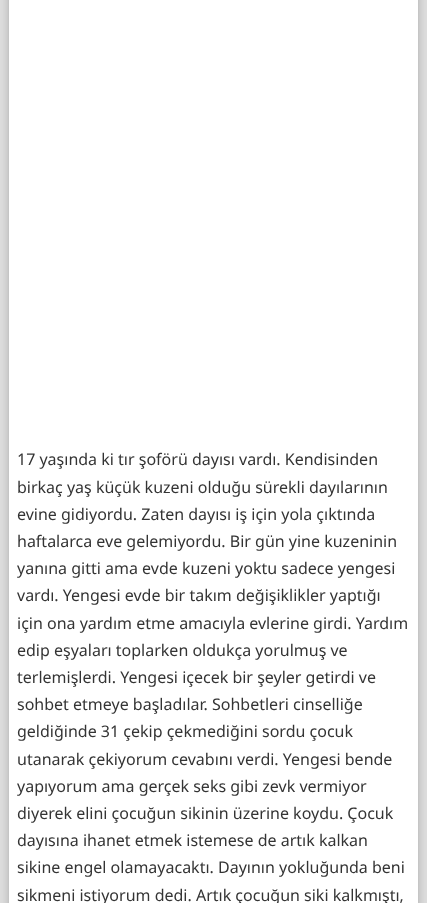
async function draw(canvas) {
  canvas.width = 427
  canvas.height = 903
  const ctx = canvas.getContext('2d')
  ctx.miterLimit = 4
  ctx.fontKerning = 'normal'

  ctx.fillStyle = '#dedede'
  ctx.fillRect(0, 0, 427, 903)
  ctx.fillStyle = '#78787880'
  ctx.filter = 'blur(5px)'
  ctx.beginPath()
  ctx.rect(9, -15, 409, 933)
  ctx.fill()
  ctx.filter = 'none'
  ctx.fillStyle = '#fff'
  ctx.fillRect(9, 0, 409, 903)
  ctx.font = '16px Noto Sans'
  ctx.fillStyle = '#343434'
  ctx.fillText('17 yaşında ki tır şoförü dayısı vardı. Kendisinden', 17, 465)
  ctx.fillText('birkaç yaş küçük kuzeni olduğu sürekli dayılarının', 17, 493)
  ctx.fillText('evine gidiyordu. Zaten dayısı iş için yola çıktında', 17, 520)
  ctx.fillText('haftalarca eve gelemiyordu. Bir gün yine kuzeninin', 17, 547)
  ctx.fillText('yanına gitti ama evde kuzeni yoktu sadece yengesi', 17, 574)
  ctx.fillText('vardı. Yengesi evde bir takım değişiklikler yaptığı', 17, 601)
  ctx.fillText('için ona yardım etme amacıyla evlerine girdi. Yardım', 17, 629)
  ctx.fillText('edip eşyaları toplarken oldukça yorulmuş ve', 17, 656)
  ctx.fillText('terlemişlerdi. Yengesi içecek bir şeyler getirdi ve', 17, 683)
  ctx.fillText('sohbet etmeye başladılar. Sohbetleri cinselliğe', 17, 710)
  ctx.fillText('geldiğinde 31 çekip çekmediğini sordu çocuk', 17, 737)
  ctx.fillText('utanarak çekiyorum cevabını verdi. Yengesi bende', 17, 765)
  ctx.fillText('yapıyorum ama gerçek seks gibi zevk vermiyor', 17, 792)
  ctx.fillText('diyerek elini çocuğun sikinin üzerine koydu. Çocuk', 17, 819)
  ctx.fillText('dayısına ihanet etmek istemese de artık kalkan', 17, 846)
  ctx.fillText('sikine engel olamayacaktı. Dayının yokluğunda beni', 17, 873)
  ctx.fillText('sikmeni istiyorum dedi. Artık çocuğun siki kalkmıştı,', 17, 901)
}

draw(document.querySelector('canvas'))
